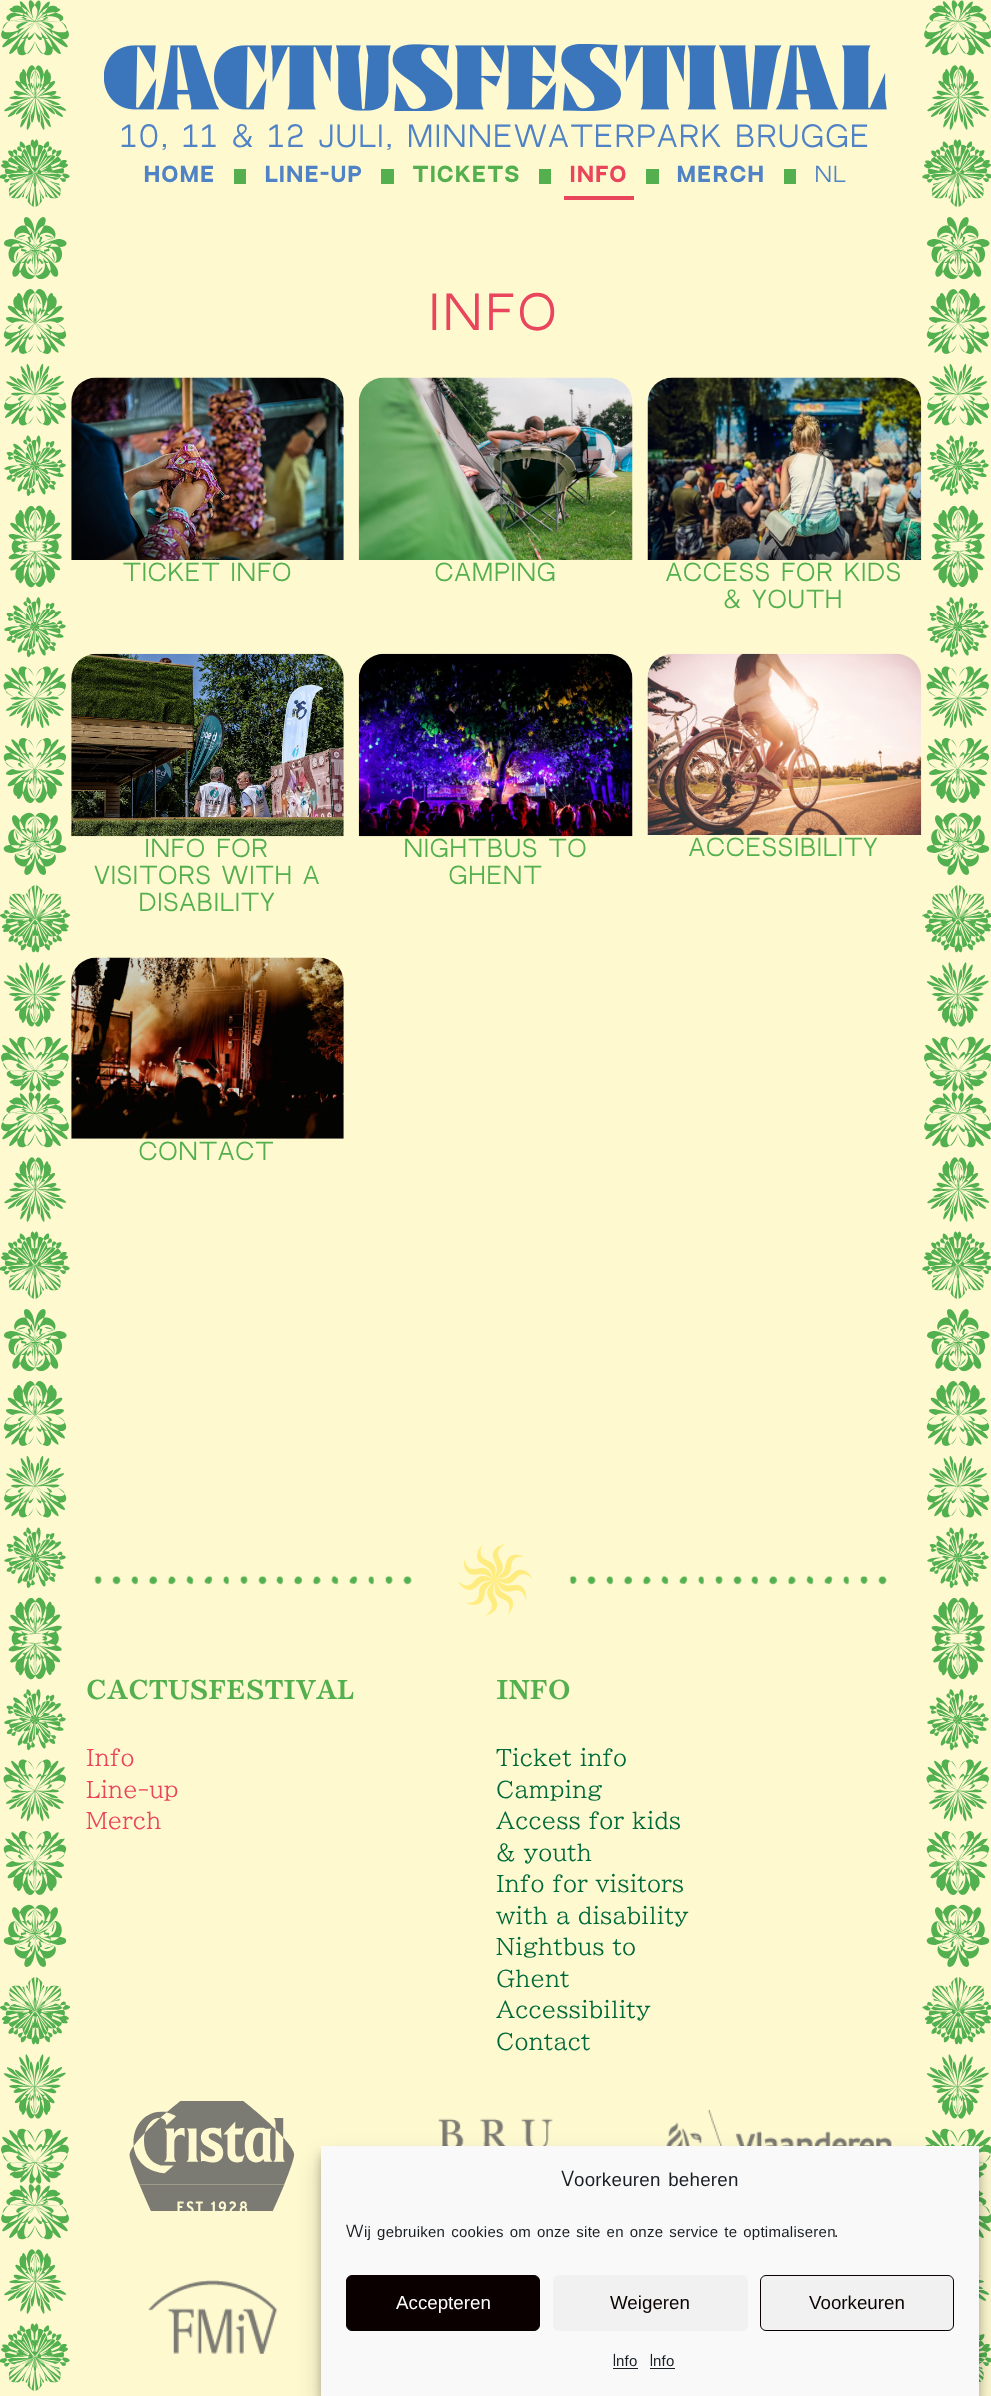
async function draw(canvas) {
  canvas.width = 991
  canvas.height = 2396
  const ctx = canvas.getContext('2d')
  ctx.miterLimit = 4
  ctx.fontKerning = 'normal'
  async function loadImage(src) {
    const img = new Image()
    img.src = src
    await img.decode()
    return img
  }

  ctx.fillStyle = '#fff9d0'
  ctx.fillRect(0, 0, 991, 2396)
  ctx.drawImage(await loadImage('image0.png'), 0, 0, 991, 2391)
  ctx.drawImage(await loadImage('image1.png'), 104, 44, 783, 67)
  ctx.letterSpacing = '2.5px'
  ctx.font = '27.75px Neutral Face'
  ctx.fillStyle = '#5083c5'
  ctx.fillText('10, 11 & 12 JULI, MINNEWATERPARK BRUGGE', 121, 147)
  ctx.letterSpacing = '2px'
  ctx.font = 'bold 20px Neutral Face'
  ctx.fillText('HOME', 144, 182)
  ctx.fillStyle = '#54b04f'
  ctx.fillRect(234, 169, 12, 15)
  ctx.fillStyle = '#5083c5'
  ctx.fillText('LINE-UP', 265, 182)
  ctx.fillStyle = '#54b04f'
  ctx.fillRect(381, 169, 13, 15)
  ctx.fillText('TICKETS', 413, 182)
  ctx.fillRect(539, 169, 12, 15)
  ctx.fillStyle = '#e9455d'
  ctx.fillText('INFO', 570, 182)
  ctx.fillRect(564, 196, 70, 4)
  ctx.fillStyle = '#54b04f'
  ctx.fillRect(646, 169, 13, 15)
  ctx.fillStyle = '#5083c5'
  ctx.fillText('MERCH', 677, 182)
  ctx.fillStyle = '#54b04f'
  ctx.fillRect(784, 169, 12, 15)
  ctx.font = '20px Neutral Face'
  ctx.fillStyle = '#5083c5'
  ctx.fillText('NL', 815, 182)
  ctx.letterSpacing = '5.5px'
  ctx.font = '45px Neutral Face'
  ctx.fillStyle = '#e9455d'
  ctx.fillText('INFO', 430, 330)
  ctx.drawImage(await loadImage('image2.png'), 71, 377, 273, 183)
  ctx.letterSpacing = '1.75px'
  ctx.font = '22.5px Neutral Face'
  ctx.fillStyle = '#54b04f'
  ctx.fillText('TICKET INFO', 123, 581)
  ctx.drawImage(await loadImage('image3.png'), 358, 377, 275, 183)
  ctx.fillText('CAMPING', 435, 581)
  ctx.drawImage(await loadImage('image4.png'), 647, 377, 275, 183)
  ctx.fillText('ACCESS FOR KIDS', 666, 581)
  ctx.fillText('& YOUTH', 724, 608)
  ctx.drawImage(await loadImage('image5.png'), 71, 653, 273, 184)
  ctx.fillText('INFO FOR', 145, 857)
  ctx.fillText('VISITORS WITH A', 94, 884)
  ctx.fillText('DISABILITY', 139, 911)
  ctx.drawImage(await loadImage('image6.png'), 358, 653, 275, 184)
  ctx.fillText('NIGHTBUS TO', 404, 857)
  ctx.fillText('GHENT', 449, 884)
  ctx.drawImage(await loadImage('image7.png'), 647, 653, 275, 182)
  ctx.fillText('ACCESSIBILITY', 689, 856)
  ctx.drawImage(await loadImage('image8.png'), 71, 957, 273, 182)
  ctx.fillText('CONTACT', 139, 1160)
  ctx.drawImage(await loadImage('image9.png'), 94, 1575, 318, 10)
  ctx.drawImage(await loadImage('image10.png'), 457, 1544, 76, 72)
  ctx.drawImage(await loadImage('image11.png'), 569, 1575, 318, 10)
  ctx.letterSpacing = '0px'
  ctx.font = 'bold 25px BIZ UDPMincho'
  ctx.fillText('CACTUSFESTIVAL', 86, 1699)
  ctx.letterSpacing = '0.25px'
  ctx.font = '22.5px BIZ UDPMincho'
  ctx.fillStyle = '#e9455d'
  ctx.fillText('Info', 86, 1766)
  ctx.fillText('Line-up', 86, 1798)
  ctx.fillText('Merch', 86, 1829)
  ctx.letterSpacing = '0px'
  ctx.font = 'bold 25px BIZ UDPMincho'
  ctx.fillStyle = '#54b04f'
  ctx.fillText('INFO', 496, 1699)
  ctx.letterSpacing = '0.25px'
  ctx.font = '22.5px BIZ UDPMincho'
  ctx.fillStyle = '#006a3a'
  ctx.fillText('Ticket info', 496, 1766)
  ctx.fillText('Camping', 496, 1798)
  ctx.fillText('Access for kids', 496, 1829)
  ctx.fillText('& youth', 496, 1861)
  ctx.fillText('Info for visitors', 496, 1892)
  ctx.fillText('with a disability', 496, 1924)
  ctx.fillText('Nightbus to', 496, 1955)
  ctx.fillText('Ghent', 496, 1987)
  ctx.fillText('Accessibility', 496, 2018)
  ctx.fillText('Contact', 496, 2050)
  ctx.drawImage(await loadImage('image12.png'), 129, 2101, 166, 110)
  ctx.drawImage(await loadImage('image13.png'), 438, 2118, 115, 28)
  ctx.drawImage(await loadImage('image14.png'), 666, 2109, 226, 37)
  ctx.drawImage(await loadImage('image15.png'), 148, 2280, 130, 74)
  ctx.fillStyle = '#0000003b'
  ctx.filter = 'blur(4px)'
  ctx.beginPath()
  ctx.rect(321, 2154, 658, 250)
  ctx.fill()
  ctx.filter = 'none'
  ctx.fillStyle = '#00000030'
  ctx.filter = 'blur(12.5px)'
  ctx.beginPath()
  ctx.rect(321, 2159, 658, 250)
  ctx.fill()
  ctx.filter = 'none'
  ctx.fillStyle = '#f9f9f9'
  ctx.fillRect(321, 2146, 658, 250)
  ctx.font = '18.75px Neutral Face'
  ctx.fillStyle = '#191e23'
  ctx.fillText('V', 561, 2186)
  ctx.wordSpacing = '2px'
  ctx.font = '18.75px Liberation Sans'
  ctx.fillText('oorkeuren beheren', 574, 2186)
  ctx.wordSpacing = '0px'
  ctx.font = '15px Neutral Face'
  ctx.fillText('W', 346, 2237)
  ctx.wordSpacing = '1.5px'
  ctx.font = '15px Liberation Sans'
  ctx.fillText('ij gebruiken cookies om onze site en onze service te optimaliseren', 364, 2237)
  ctx.wordSpacing = '0px'
  ctx.font = '15px Neutral Face'
  ctx.fillText('.', 835, 2237)
  ctx.fillStyle = '#0a0000'
  ctx.beginPath()
  ctx.roundRect(346.5, 2275.5, 193, 55, 5.5)
  ctx.fill()
  ctx.strokeStyle = '#0a0202'
  ctx.stroke()
  ctx.letterSpacing = '0px'
  ctx.font = '18.75px Liberation Sans'
  ctx.fillStyle = '#fff'
  ctx.fillText('Accepteren', 396, 2309)
  ctx.fillStyle = '#f1f1f1'
  ctx.beginPath()
  ctx.roundRect(553, 2275, 195, 56, 6)
  ctx.fill()
  ctx.fillStyle = '#0a0101'
  ctx.fillText('Weigeren', 610, 2309)
  ctx.fillStyle = '#f1f1f1'
  ctx.beginPath()
  ctx.roundRect(760.5, 2275.5, 193, 55, 5.5)
  ctx.fill()
  ctx.strokeStyle = '#0a0000'
  ctx.stroke()
  ctx.fillStyle = '#0a0101'
  ctx.fillText('Voorkeuren', 809, 2309)
  ctx.letterSpacing = '0.25px'
  ctx.font = '15px Neutral Face'
  ctx.fillStyle = '#191e23'
  ctx.fillText('I', 613, 2366)
  ctx.font = '15px Liberation Sans'
  ctx.fillText('nfo', 616, 2366)
  ctx.fillRect(613, 2368, 25, 1)
  ctx.font = '15px Neutral Face'
  ctx.fillText('I', 650, 2366)
  ctx.font = '15px Liberation Sans'
  ctx.fillText('nfo', 653, 2366)
  ctx.fillRect(650, 2368, 25, 1)
}

draw(document.querySelector('canvas'))
